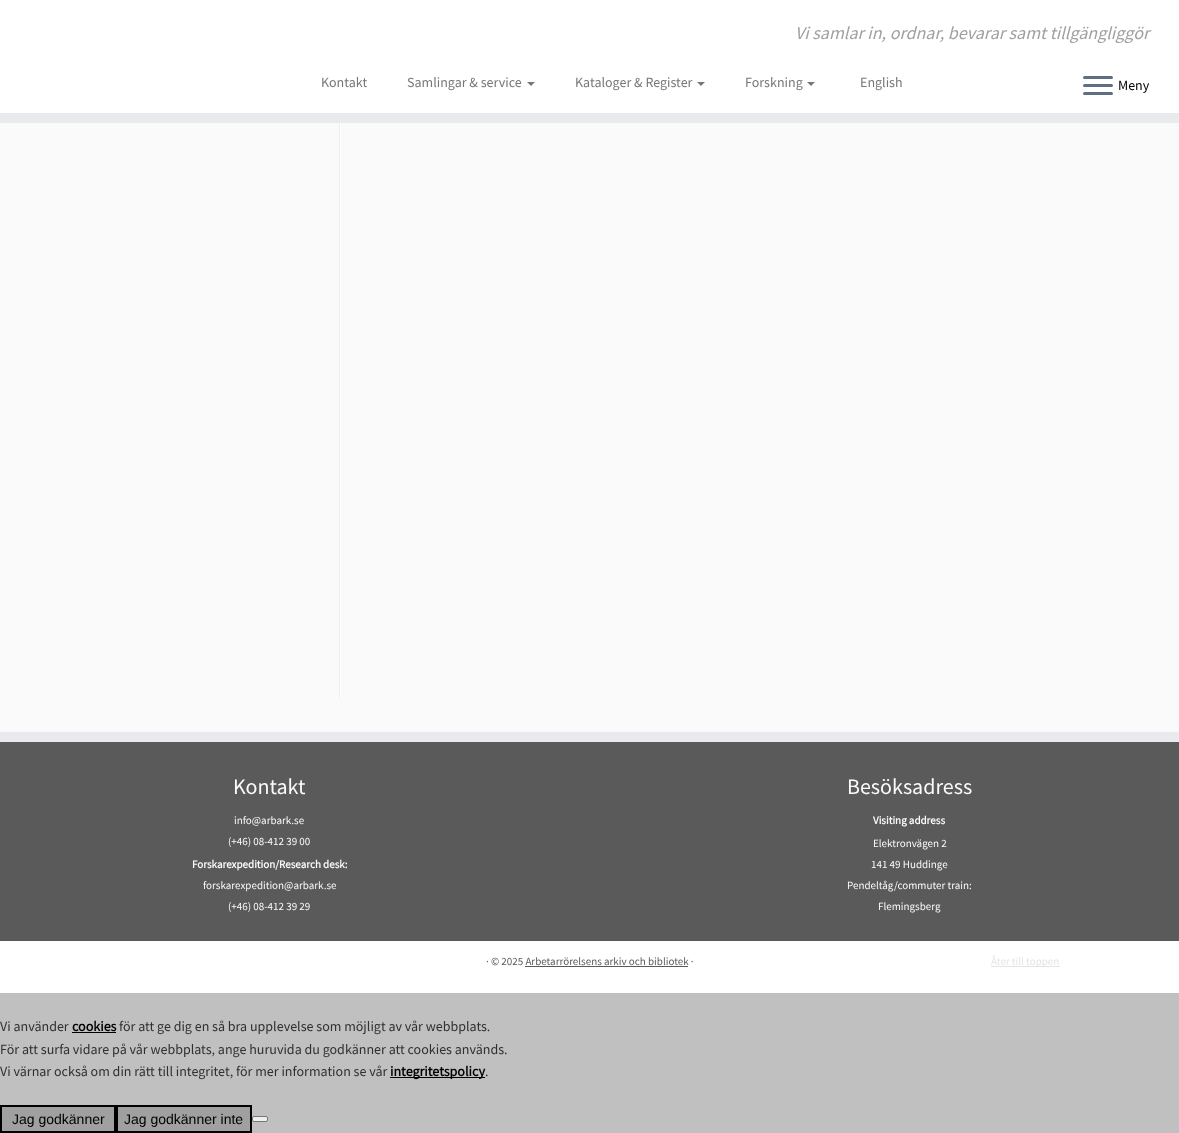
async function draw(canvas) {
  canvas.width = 1179
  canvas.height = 1133
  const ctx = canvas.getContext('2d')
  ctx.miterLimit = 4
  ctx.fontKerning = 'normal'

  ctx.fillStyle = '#fafafa'
  ctx.fillRect(0, 0, 1179, 1133)
  ctx.fillStyle = '#fff'
  ctx.fillRect(0, 0, 1179, 113)
  ctx.fillStyle = '#e9eaee'
  ctx.fillRect(0, 113, 1179, 10)
  ctx.font = 'italic 18px Source Sans Pro'
  ctx.fillStyle = '#a0a0a0'
  ctx.fillText('Vi samlar in, ordnar, bevarar samt tillgängliggör', 795, 39)
  ctx.font = '14px Source Sans Pro'
  ctx.fillStyle = '#777'
  ctx.fillText('Kontakt', 321, 87)
  ctx.fillText('Samlingar & service', 407, 87)
  ctx.beginPath()
  ctx.moveTo(527, 82)
  ctx.lineTo(535, 82)
  ctx.lineTo(531, 86)
  ctx.closePath()
  ctx.fill()
  ctx.fillText('Kataloger & Register', 575, 87)
  ctx.beginPath()
  ctx.moveTo(697, 82)
  ctx.lineTo(705, 82)
  ctx.lineTo(701, 86)
  ctx.closePath()
  ctx.fill()
  ctx.fillText('Forskning', 745, 87)
  ctx.beginPath()
  ctx.moveTo(807, 82)
  ctx.lineTo(815, 82)
  ctx.lineTo(811, 86)
  ctx.closePath()
  ctx.fill()
  ctx.fillText('English', 860, 87)
  ctx.fillStyle = '#5f6f81'
  ctx.beginPath()
  ctx.roundRect(1083, 76, 30, 3, 1.5)
  ctx.fill()
  ctx.beginPath()
  ctx.roundRect(1083, 84, 30, 3, 1.5)
  ctx.fill()
  ctx.beginPath()
  ctx.roundRect(1083, 92, 30, 3, 1.5)
  ctx.fill()
  ctx.fillStyle = '#000'
  ctx.fillText('Meny', 1118, 90)
  ctx.fillStyle = '#eee'
  ctx.fillRect(339, 123, 1, 575)
  ctx.fillStyle = '#fff'
  ctx.fillRect(340, 123, 1, 575)
  ctx.fillStyle = '#5a5a5a'
  ctx.fillRect(0, 742, 1179, 199)
  ctx.fillStyle = '#e9eaee'
  ctx.fillRect(0, 732, 1179, 10)
  ctx.font = '22px Source Sans Pro'
  ctx.fillStyle = '#fafafa'
  ctx.fillText('Kontakt', 233, 794)
  ctx.font = '11px Source Sans Pro'
  ctx.fillText('info@arbark.se', 234, 824)
  ctx.fillText('(+46) 08-412 39 00', 228, 845)
  ctx.font = 'bold 11px Source Sans Pro'
  ctx.fillText('Forskarexpedition/Research desk:', 192, 868)
  ctx.font = '11px Source Sans Pro'
  ctx.fillText('forskarexpedition@arbark.se', 203, 889)
  ctx.fillText('(+46) 08-412 39 29', 228, 910)
  ctx.font = '22px Source Sans Pro'
  ctx.fillText('Besöksadress', 847, 794)
  ctx.font = 'bold 11px Source Sans Pro'
  ctx.fillText('Visiting address', 873, 824)
  ctx.font = '11px Source Sans Pro'
  ctx.fillText('Elektronvägen 2', 873, 847)
  ctx.fillText('141 49 Huddinge', 871, 868)
  ctx.fillText('Pendeltåg/commuter train:', 847, 889)
  ctx.fillText('Flemingsberg', 878, 910)
  ctx.fillStyle = '#fff'
  ctx.fillRect(0, 941, 1179, 52)
  ctx.fillStyle = '#5a5a5a'
  ctx.fillText('· © 2025 Arbetarrörelsens arkiv och bibliotek ·', 486, 965)
  ctx.fillRect(525, 966, 163, 1)
  ctx.fillStyle = '#e4e4e4'
  ctx.fillRect(991, 966, 69, 1)
  ctx.fillText('Åter till toppen', 991, 965)
  ctx.fillStyle = '#c0c0c0'
  ctx.fillRect(0, 993, 1179, 140)
  ctx.font = '14px Source Sans Pro'
  ctx.fillStyle = '#303030'
  ctx.fillText('Vi använder', 0, 1031)
  ctx.font = 'bold 14px Source Sans Pro'
  ctx.fillStyle = '#000'
  ctx.fillText('cookies', 72, 1031)
  ctx.fillRect(72, 1032, 44, 1)
  ctx.font = '14px Source Sans Pro'
  ctx.fillStyle = '#303030'
  ctx.fillText('för att ge dig en så bra upplevelse som möjligt av vår webbplats.', 119, 1031)
  ctx.fillText('För att surfa vidare på vår webbplats, ange huruvida du godkänner att cookies används.', 0, 1054)
  ctx.fillText('Vi värnar också om din rätt till integritet, för mer information se vår', 0, 1076)
  ctx.fillStyle = '#000'
  ctx.fillRect(390, 1077, 95, 1)
  ctx.font = 'bold 14px Source Sans Pro'
  ctx.fillText('integritetspolicy', 390, 1076)
  ctx.font = '14px Source Sans Pro'
  ctx.fillStyle = '#303030'
  ctx.fillText('.', 485, 1076)
  ctx.fillStyle = '#a0a0a0'
  ctx.beginPath()
  ctx.rect(1, 1106, 114, 26)
  ctx.fill()
  ctx.strokeStyle = '#000'
  ctx.lineWidth = 2
  ctx.stroke()
  ctx.font = '14px Liberation Sans'
  ctx.fillStyle = '#000'
  ctx.fillText('Jag godkänner', 12, 1124)
  ctx.fillStyle = '#a0a0a0'
  ctx.beginPath()
  ctx.rect(117, 1106, 134, 26)
  ctx.fill()
  ctx.stroke()
  ctx.fillStyle = '#000'
  ctx.fillText('Jag godkänner inte', 124, 1124)
  ctx.fillStyle = '#efefef'
  ctx.beginPath()
  ctx.roundRect(252.5, 1116.5, 15, 5, 1.5)
  ctx.fill()
  ctx.strokeStyle = '#767676'
  ctx.lineWidth = 1
  ctx.stroke()
}

draw(document.querySelector('canvas'))
